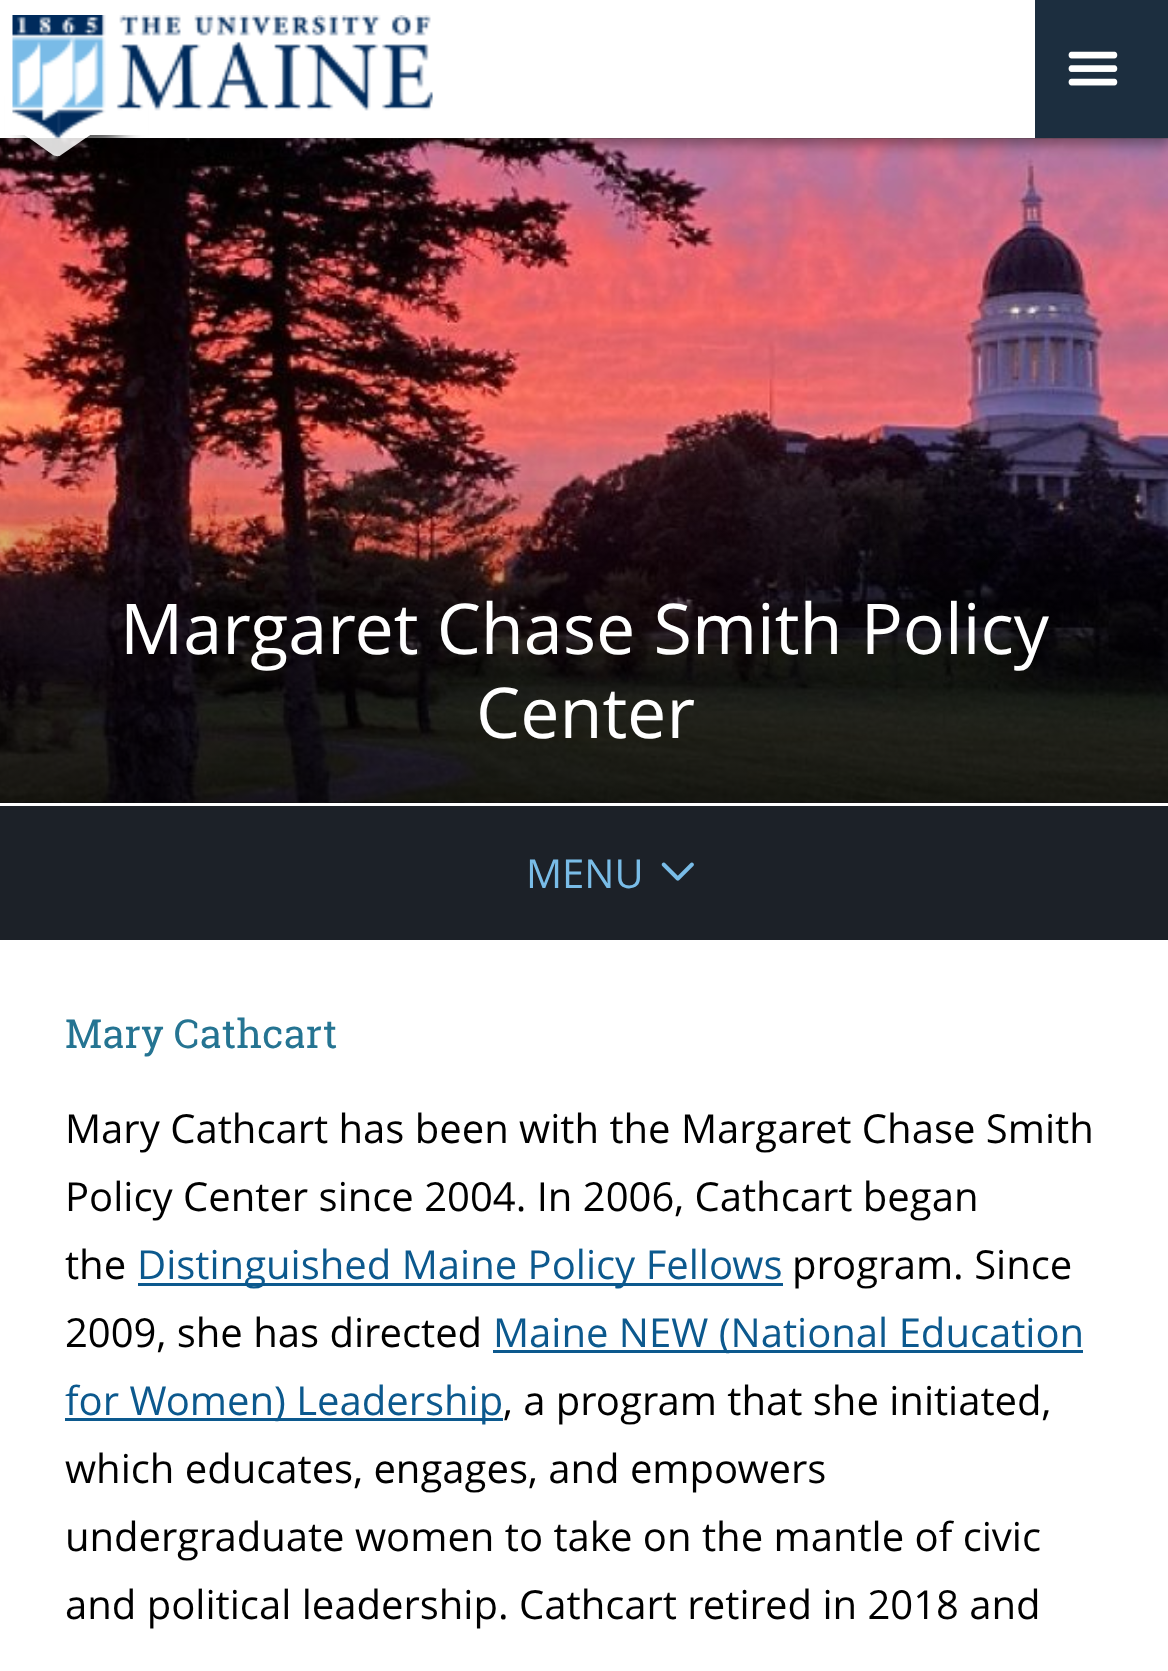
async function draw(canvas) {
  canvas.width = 1168
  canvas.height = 1671
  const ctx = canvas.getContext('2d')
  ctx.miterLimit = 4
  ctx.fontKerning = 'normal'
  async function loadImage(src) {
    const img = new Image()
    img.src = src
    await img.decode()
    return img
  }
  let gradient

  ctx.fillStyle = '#fff'
  ctx.fillRect(0, 0, 1168, 1671)
  ctx.fillStyle = '#1c2128'
  ctx.fillRect(0, 802, 1168, 138)
  ctx.drawImage(await loadImage('image2.png'), 0, 138, 1168, 665)
  ctx.fillStyle = '#00000059'
  ctx.filter = 'blur(6px)'
  ctx.beginPath()
  ctx.rect(0, 8, 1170, 137)
  ctx.fill()
  ctx.filter = 'none'
  ctx.fillStyle = '#fff'
  ctx.fillRect(0, 0, 1035, 138)
  ctx.save()
  ctx.beginPath()
  ctx.moveTo(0, 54)
  ctx.lineTo(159, 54)
  ctx.lineTo(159, 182)
  ctx.lineTo(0, 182)
  ctx.closePath()
  ctx.moveTo(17.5, 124.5)
  ctx.lineTo(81, 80)
  ctx.bezierCurveTo(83.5, 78.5, 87, 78.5, 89.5, 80)
  ctx.lineTo(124.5, 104.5)
  ctx.bezierCurveTo(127, 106.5, 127, 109, 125, 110.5)
  ctx.lineTo(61.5, 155)
  ctx.bezierCurveTo(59, 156.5, 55.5, 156.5, 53, 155)
  ctx.lineTo(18, 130.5)
  ctx.bezierCurveTo(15.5, 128.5, 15.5, 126, 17.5, 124.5)
  ctx.closePath()
  ctx.clip('evenodd')
  ctx.fillStyle = '#000000d9'
  ctx.filter = 'blur(12.5px)'
  ctx.beginPath()
  ctx.roundRect(33, 93, 87, 50, 5)
  ctx.fill()
  ctx.filter = 'none'
  ctx.restore()
  ctx.fillStyle = '#ffffffd9'
  ctx.beginPath()
  ctx.moveTo(18, 124)
  ctx.lineTo(81, 80)
  ctx.bezierCurveTo(83, 78, 87, 79, 90, 80)
  ctx.lineTo(125, 105)
  ctx.bezierCurveTo(127, 106, 127, 109, 125, 111)
  ctx.lineTo(61, 155)
  ctx.bezierCurveTo(59, 157, 55, 156, 53, 155)
  ctx.lineTo(18, 130)
  ctx.bezierCurveTo(16, 129, 15, 126, 18, 124)
  ctx.closePath()
  ctx.fill()
  ctx.fillStyle = '#fff'
  ctx.fillRect(5, 65, 143, 70)
  ctx.drawImage(await loadImage('image0.png'), 12, 15, 421, 124)
  ctx.fillStyle = '#1c2e3f'
  ctx.fillRect(1035, 0, 133, 138)
  ctx.drawImage(await loadImage('image1.png'), 1068, 51, 50, 35)
  gradient = ctx.createLinearGradient(585, 137, 585, 803)
  gradient.addColorStop(0.5, '#00000000')
  gradient.addColorStop(1, '#000000ab')
  ctx.fillStyle = gradient
  ctx.fillRect(0, 481, 1168, 322)
  ctx.font = '70px Open Sans'
  ctx.fillStyle = '#fff'
  ctx.fillText('Margaret Chase Smith Policy', 120, 654)
  ctx.fillText('Center', 476, 738)
  ctx.fillRect(0, 803, 1168, 3)
  ctx.font = '40px Open Sans'
  ctx.fillStyle = '#79bce7'
  ctx.fillText('MENU', 526, 888)
  ctx.drawImage(await loadImage('image3.png'), 661, 862, 33, 19)
  ctx.font = '40px Roboto Slab'
  ctx.fillStyle = '#257492'
  ctx.fillText('Mary Cathcart', 65, 1048)
  ctx.font = '40px Open Sans'
  ctx.fillStyle = '#000'
  ctx.fillText('Mary Cathcart has been with the Margaret Chase Smith', 65, 1143)
  ctx.fillText('Policy Center since 2004. In 2006, Cathcart began', 65, 1211)
  ctx.fillText('the', 65, 1279)
  ctx.fillStyle = '#0c598e'
  ctx.fillRect(138, 1283, 645, 3)
  ctx.fillText('Distinguished Maine Policy Fellows', 137, 1279)
  ctx.fillStyle = '#000'
  ctx.fillText('program. Since', 792, 1279)
  ctx.fillText('2009, she has directed', 65, 1347)
  ctx.fillStyle = '#0c598e'
  ctx.fillRect(493, 1350, 590, 3)
  ctx.fillText('Maine NEW (National Education', 493, 1347)
  ctx.fillRect(65, 1418, 438, 3)
  ctx.fillText('for Women) Leadership', 65, 1415)
  ctx.fillStyle = '#000'
  ctx.fillText(', a program that she initiated,', 503, 1415)
  ctx.fillText('which educates, engages, and empowers', 65, 1483)
  ctx.fillText('undergraduate women to take on the mantle of civic', 65, 1551)
  ctx.fillText('and political leadership. Cathcart retired in 2018 and', 65, 1619)
}

draw(document.querySelector('canvas'))
